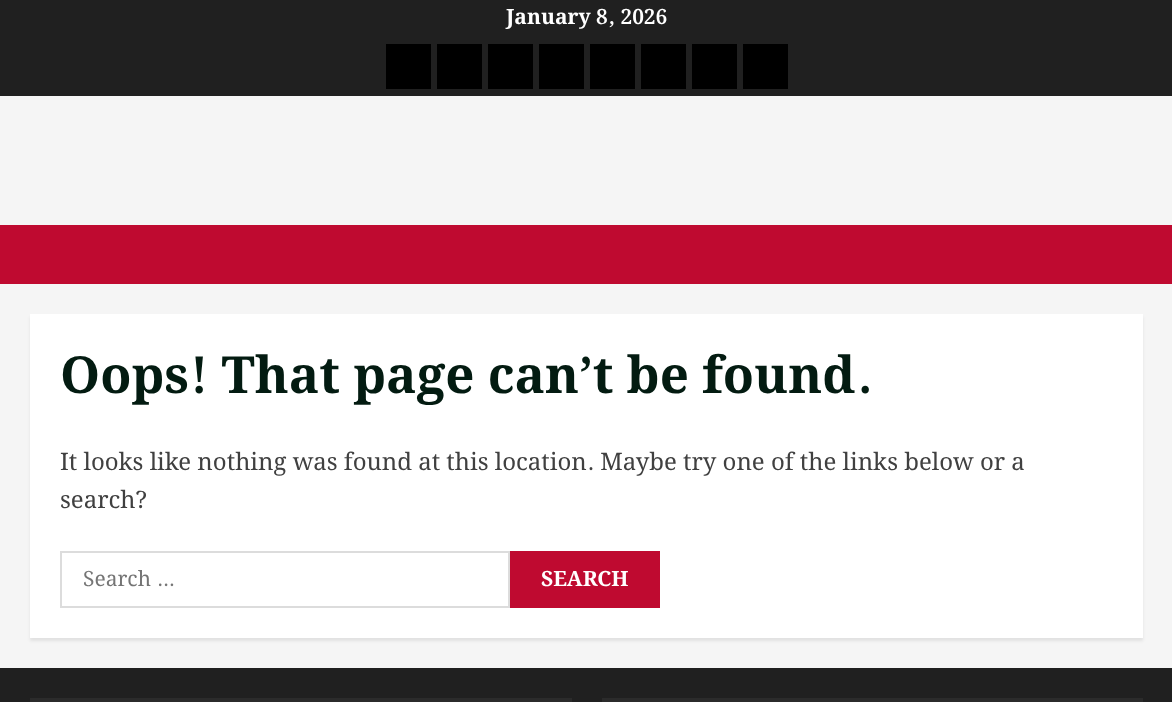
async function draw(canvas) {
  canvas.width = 1172
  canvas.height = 702
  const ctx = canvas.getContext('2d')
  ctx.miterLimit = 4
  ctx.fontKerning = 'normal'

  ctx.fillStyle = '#f5f5f5'
  ctx.fillRect(0, 0, 1172, 702)
  ctx.fillStyle = '#202020'
  ctx.fillRect(0, 0, 1172, 96)
  ctx.font = 'bold 21px Noto Serif Bengali'
  ctx.fillStyle = '#fff'
  ctx.fillText('January 8, 2026', 506, 24)
  ctx.fillStyle = '#000'
  ctx.fillRect(386, 44, 45, 45)
  ctx.fillRect(437, 44, 45, 45)
  ctx.fillRect(488, 44, 45, 45)
  ctx.fillRect(539, 44, 45, 45)
  ctx.fillRect(590, 44, 45, 45)
  ctx.fillRect(641, 44, 45, 45)
  ctx.fillRect(692, 44, 45, 45)
  ctx.fillRect(743, 44, 45, 45)
  ctx.fillStyle = '#bf0a30'
  ctx.fillRect(0, 225, 1172, 59)
  ctx.fillStyle = '#00000014'
  ctx.filter = 'blur(1.5px)'
  ctx.beginPath()
  ctx.rect(30, 317, 1113, 324)
  ctx.fill()
  ctx.filter = 'none'
  ctx.fillStyle = '#fff'
  ctx.fillRect(30, 314, 1113, 324)
  ctx.font = 'bold 51px Noto Serif Bengali'
  ctx.fillStyle = '#031b11'
  ctx.fillText('Oops! That page can’t be found.', 60, 393)
  ctx.font = '24px Noto Serif Bengali'
  ctx.fillStyle = '#404040'
  ctx.fillText('It looks like nothing was found at this location. Maybe try one of the links below or a', 60, 470)
  ctx.fillText('search?', 60, 508)
  ctx.strokeStyle = '#dcdcdc'
  ctx.lineWidth = 2
  ctx.strokeRect(61, 552, 448, 55)
  ctx.font = '21px Noto Serif Bengali'
  ctx.fillStyle = '#757575'
  ctx.fillText('Search …', 83, 586)
  ctx.fillStyle = '#bf0a30'
  ctx.fillRect(510, 551, 150, 57)
  ctx.font = 'bold 21px Noto Serif Bengali'
  ctx.fillStyle = '#fff'
  ctx.fillText('SEARCH', 541, 586)
  ctx.fillStyle = '#202020'
  ctx.fillRect(0, 668, 1172, 34)
  ctx.fillStyle = '#2b2b2b'
  ctx.fillRect(30, 698, 542, 4)
  ctx.fillRect(602, 698, 541, 4)
}

draw(document.querySelector('canvas'))
